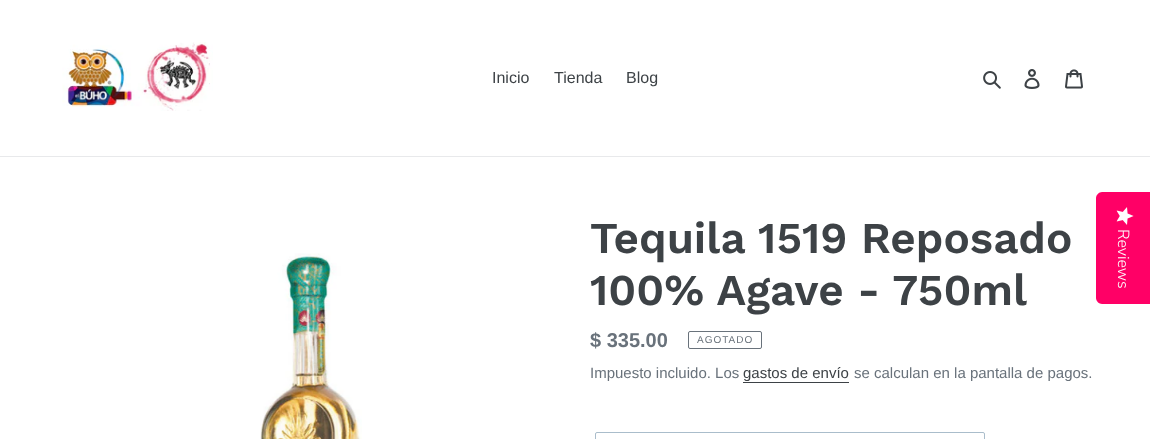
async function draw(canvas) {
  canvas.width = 1150
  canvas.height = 439
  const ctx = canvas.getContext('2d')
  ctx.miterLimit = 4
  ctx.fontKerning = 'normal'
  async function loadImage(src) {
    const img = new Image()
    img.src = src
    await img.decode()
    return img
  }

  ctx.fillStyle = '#fff'
  ctx.fillRect(0, 0, 1150, 439)
  ctx.fillStyle = '#e8e9eb'
  ctx.fillRect(0, 156, 1150, 1)
  ctx.drawImage(await loadImage('image0.png'), 62, 42, 151, 69)
  ctx.font = '16px Liberation Sans'
  ctx.fillStyle = '#3d4246'
  ctx.fillText('Inicio', 492, 83)
  ctx.fillText('Tienda', 554, 83)
  ctx.fillText('Blog', 626, 83)
  ctx.drawImage(await loadImage('image1.png'), 983, 71, 18, 18)
  ctx.drawImage(await loadImage('image2.png'), 1024, 69, 16, 20)
  ctx.drawImage(await loadImage('image3.png'), 1065, 69, 18, 20)
  ctx.drawImage(await loadImage('image4.png'), 260, 253, 102, 186)
  ctx.font = '600 44px Work Sans'
  ctx.fillText('Tequila 1519 Reposado', 590, 253)
  ctx.fillText('100% Agave - 750ml', 590, 305)
  ctx.font = 'bold 20px Liberation Sans'
  ctx.fillStyle = '#69727b'
  ctx.fillText('$ 335.00', 590, 347)
  ctx.beginPath()
  ctx.roundRect(688.5, 331.5, 73, 17, 1.5)
  ctx.strokeStyle = '#69727b'
  ctx.stroke()
  ctx.letterSpacing = '1px'
  ctx.font = '10px Liberation Sans'
  ctx.fillText('AGOTADO', 697, 343)
  ctx.letterSpacing = '0px'
  ctx.font = '15px Liberation Sans'
  ctx.fillText('Impuesto incluido. Los', 590, 378)
  ctx.fillStyle = '#3d4246'
  ctx.fillText('gastos de envío', 743, 378)
  ctx.fillRect(743, 382, 106, 1)
  ctx.fillStyle = '#69727b'
  ctx.fillText('se calculan en la pantalla de pagos.', 854, 378)
  ctx.beginPath()
  ctx.roundRect(595.5, 432.5, 389, 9, 1.5)
  ctx.strokeStyle = '#aabdcb'
  ctx.stroke()
  ctx.fillStyle = '#f06'
  ctx.beginPath()
  ctx.moveTo(1150, 192)
  ctx.lineTo(1150, 304)
  ctx.lineTo(1102, 304)
  ctx.bezierCurveTo(1099, 304, 1096, 301, 1096, 298)
  ctx.lineTo(1096, 198)
  ctx.bezierCurveTo(1096, 195, 1099, 192, 1102, 192)
  ctx.closePath()
  ctx.fill()
  ctx.drawImage(await loadImage('image5.png'), 1116, 207, 18, 18)
  ctx.font = '300 16px Nunito Sans'
  ctx.fillStyle = '#fefefe'
  ctx.save()
  ctx.translate(1118, 229)
  ctx.rotate(90 * Math.PI / 180)
  ctx.fillText('Reviews', 0, 0)
  ctx.restore()
}

draw(document.querySelector('canvas'))
